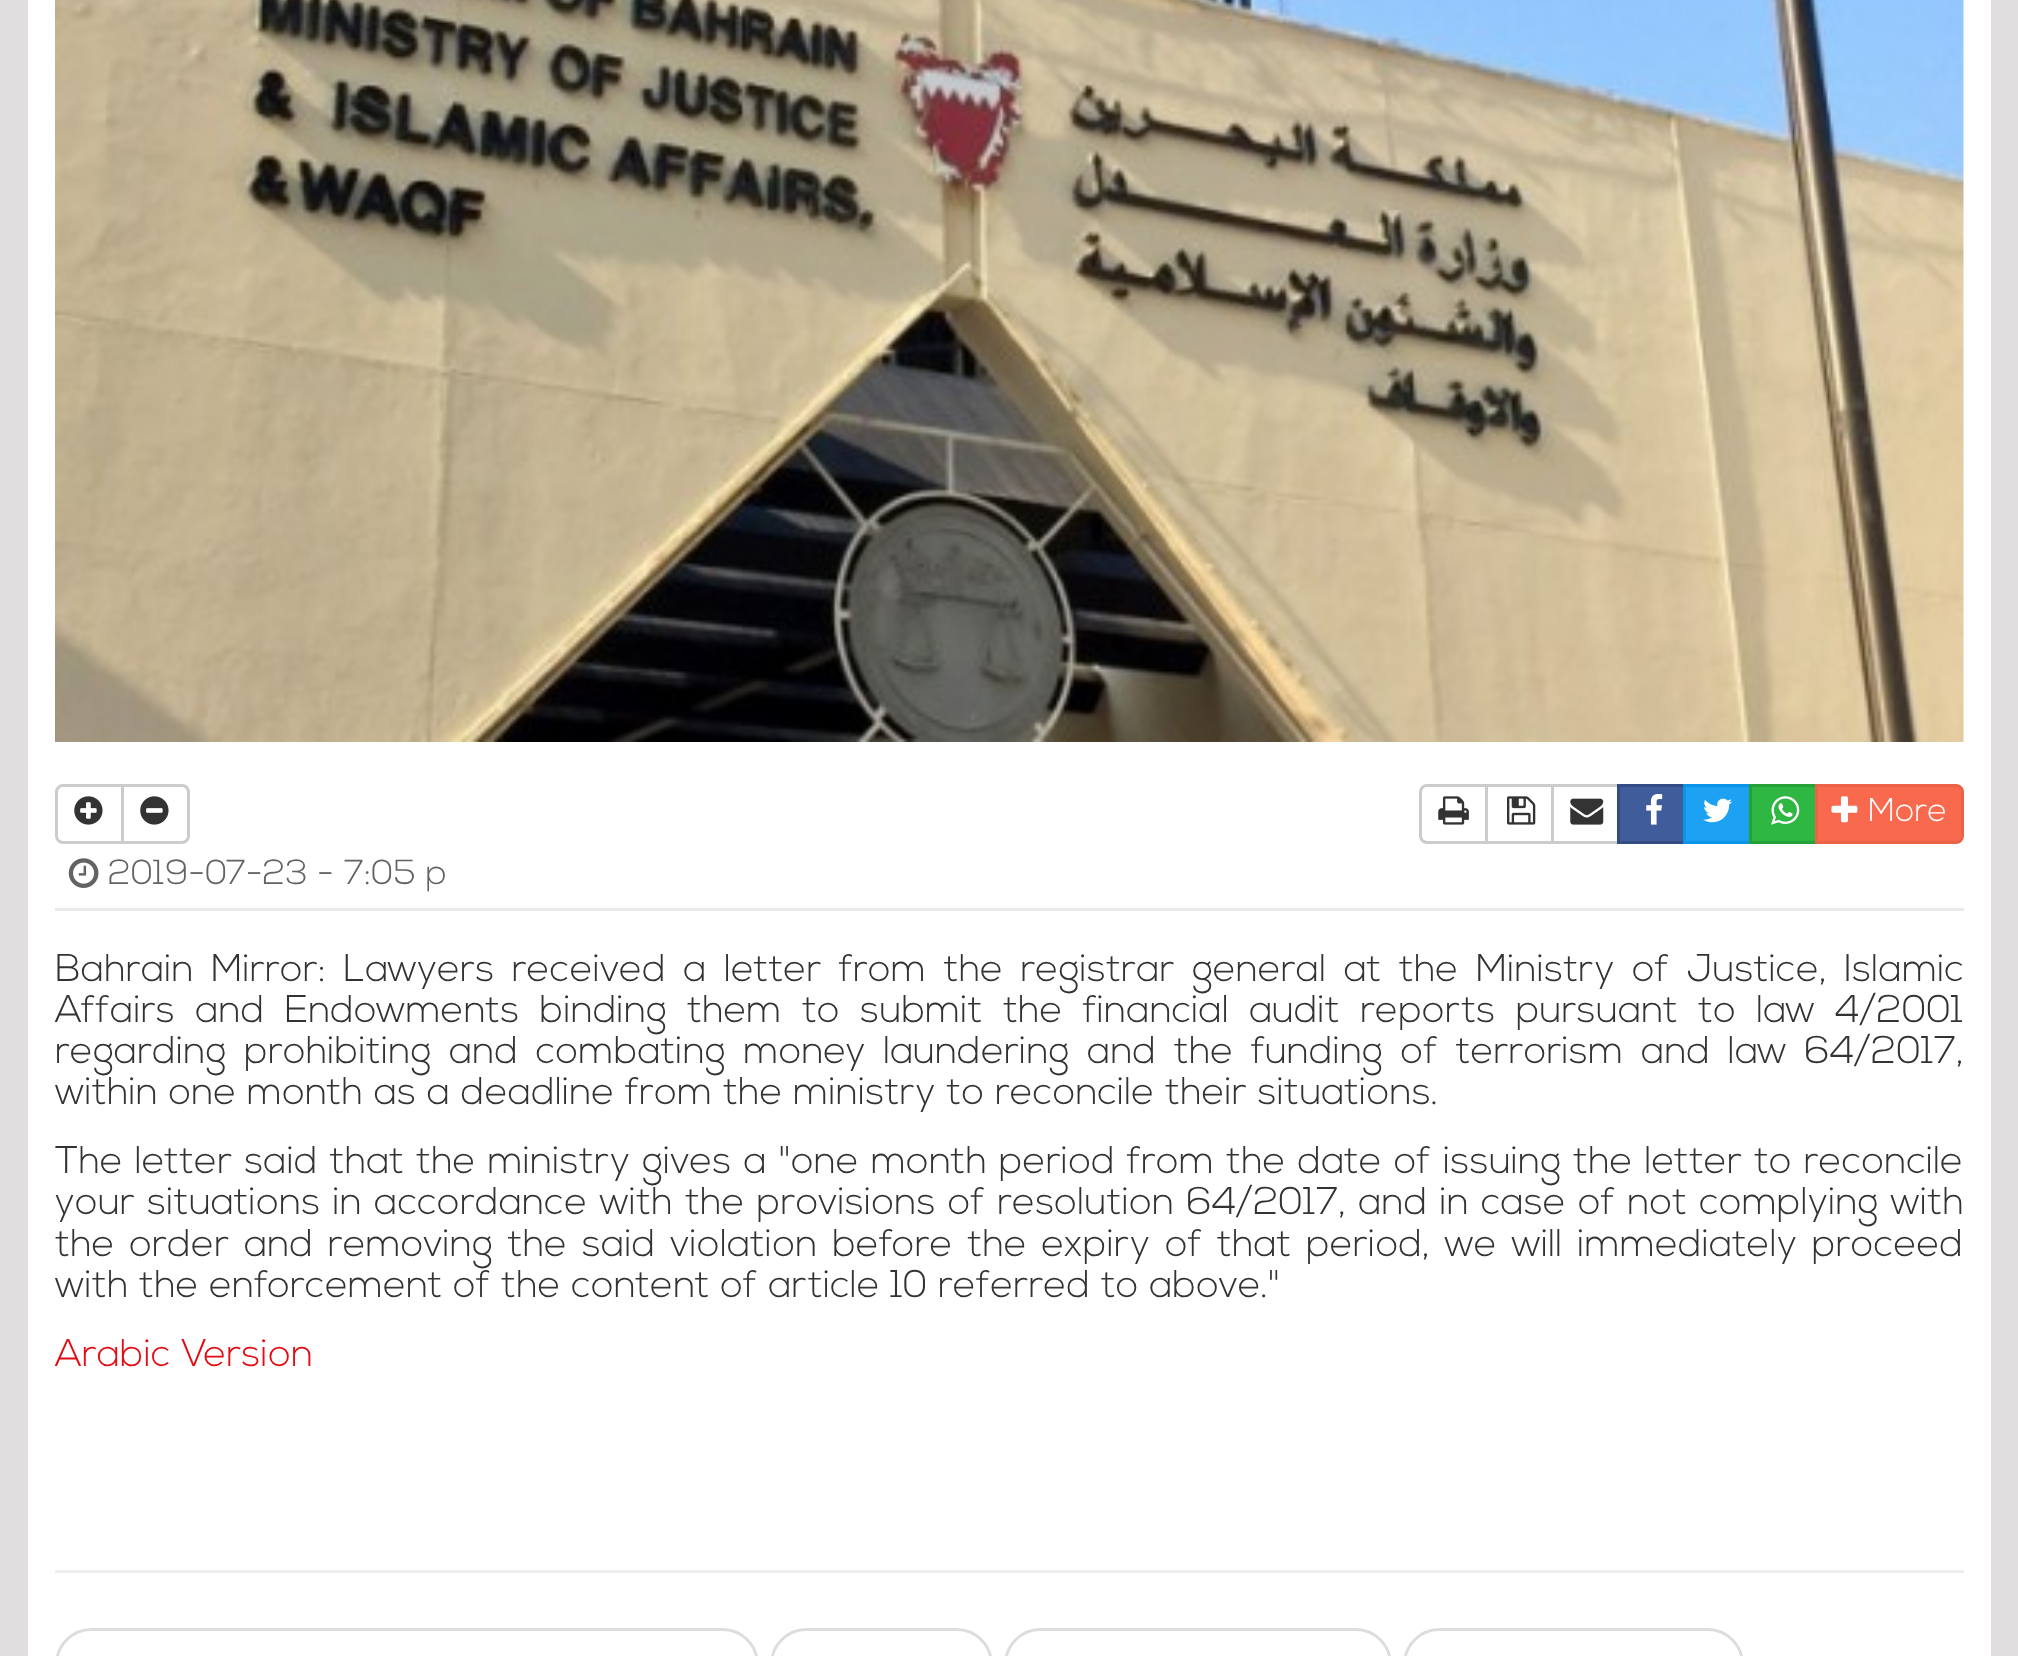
async function draw(canvas) {
  canvas.width = 2018
  canvas.height = 1656
  const ctx = canvas.getContext('2d')
  ctx.miterLimit = 4
  ctx.fontKerning = 'normal'
  async function loadImage(src) {
    const img = new Image()
    img.src = src
    await img.decode()
    return img
  }

  ctx.fillStyle = '#e0dedf'
  ctx.fillRect(0, 0, 2018, 1656)
  ctx.fillStyle = '#fff'
  ctx.fillRect(28, 0, 1963, 1656)
  ctx.drawImage(await loadImage('image0.png'), 55, 0, 1909, 742)
  ctx.beginPath()
  ctx.roundRect(56.5, 785.5, 66, 57, [6.5, 0, 0, 6.5])
  ctx.strokeStyle = '#ccc'
  ctx.lineWidth = 3
  ctx.stroke()
  ctx.drawImage(await loadImage('image1.png'), 74, 796, 29, 29)
  ctx.beginPath()
  ctx.roundRect(122.5, 785.5, 66, 57, [0, 6.5, 6.5, 0])
  ctx.fill()
  ctx.stroke()
  ctx.drawImage(await loadImage('image2.png'), 140, 796, 29, 29)
  ctx.beginPath()
  ctx.roundRect(1420.5, 785.5, 66, 57, [6.5, 0, 0, 6.5])
  ctx.stroke()
  ctx.drawImage(await loadImage('image3.png'), 1438, 796, 31, 29)
  ctx.strokeRect(1486.5, 785.5, 66, 57)
  ctx.drawImage(await loadImage('image4.png'), 1507, 796, 29, 29)
  ctx.strokeRect(1552.5, 785.5, 66, 57)
  ctx.drawImage(await loadImage('image5.png'), 1570, 798, 34, 27)
  ctx.fillStyle = '#405c9a'
  ctx.beginPath()
  ctx.rect(1618.5, 785.5, 66, 57)
  ctx.fill()
  ctx.strokeStyle = '#334c83'
  ctx.stroke()
  ctx.drawImage(await loadImage('image6.png'), 1646, 794, 17, 31)
  ctx.fillStyle = '#1da1f2'
  ctx.beginPath()
  ctx.rect(1684.5, 785.5, 66, 57)
  ctx.fill()
  ctx.strokeStyle = '#0c95e8'
  ctx.stroke()
  ctx.drawImage(await loadImage('image7.png'), 1703, 798, 29, 25)
  ctx.fillStyle = '#2eb743'
  ctx.beginPath()
  ctx.rect(1750.5, 785.5, 66, 57)
  ctx.fill()
  ctx.strokeStyle = '#26a038'
  ctx.stroke()
  ctx.drawImage(await loadImage('image8.png'), 1771, 796, 29, 29)
  ctx.fillStyle = '#f8694d'
  ctx.beginPath()
  ctx.roundRect(1816.5, 785.5, 146, 57, [0, 6.5, 6.5, 0])
  ctx.fill()
  ctx.strokeStyle = '#ea6349'
  ctx.stroke()
  ctx.drawImage(await loadImage('image9.png'), 1831, 796, 27, 27)
  ctx.font = '300 33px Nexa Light'
  ctx.fillStyle = '#fff'
  ctx.fillText('More', 1868, 821)
  ctx.fillStyle = '#eaeaea'
  ctx.fillRect(55, 908, 1909, 3)
  ctx.drawImage(await loadImage('image10.png'), 68, 858, 31, 30)
  ctx.font = '300 34.75px Nexa Light'
  ctx.fillStyle = '#636363'
  ctx.fillText('2019-07-23 - 7:05 p', 108, 884)
  ctx.wordSpacing = '6.75px'
  ctx.font = '300 38.5px Nexa Light'
  ctx.fillStyle = '#333'
  ctx.fillText('Bahrain Mirror: Lawyers received a letter from the registrar general at the Ministry of Justice, Islamic', 55, 981)
  ctx.wordSpacing = '9.6px'
  ctx.fillText('Affairs and Endowments binding them to submit the financial audit reports pursuant to law 4/2001', 55, 1022)
  ctx.wordSpacing = '7px'
  ctx.fillText('regarding prohibiting and combating money laundering and the funding of terrorism and law 64/2017,', 55, 1063)
  ctx.wordSpacing = '0px'
  ctx.fillText('within one month as a deadline from the ministry to reconcile their situations.', 55, 1104)
  ctx.wordSpacing = '1.3px'
  ctx.fillText('The letter said that the ministry gives a "one month period from the date of issuing the letter to reconcile', 55, 1173)
  ctx.wordSpacing = '1.5px'
  ctx.fillText('your situations in accordance with the provisions of resolution 64/2017, and in case of not complying with', 55, 1214)
  ctx.wordSpacing = '4.1px'
  ctx.fillText('the order and removing the said violation before the expiry of that period, we will immediately proceed', 55, 1256)
  ctx.wordSpacing = '0px'
  ctx.fillText('with the enforcement of the content of article 10 referred to above."', 55, 1297)
  ctx.fillStyle = '#e30c13'
  ctx.fillText('Arabic Version', 55, 1366)
  ctx.fillStyle = '#eee'
  ctx.fillRect(55, 1570, 1909, 3)
  ctx.beginPath()
  ctx.roundRect(56.5, 1629.5, 701, 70, 40)
  ctx.strokeStyle = '#ddd'
  ctx.stroke()
  ctx.beginPath()
  ctx.roundRect(771.5, 1629.5, 220, 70, 40)
  ctx.stroke()
  ctx.beginPath()
  ctx.roundRect(1005.5, 1629.5, 385, 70, 40)
  ctx.stroke()
  ctx.beginPath()
  ctx.roundRect(1404.5, 1629.5, 338, 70, 40)
  ctx.stroke()
}

draw(document.querySelector('canvas'))
